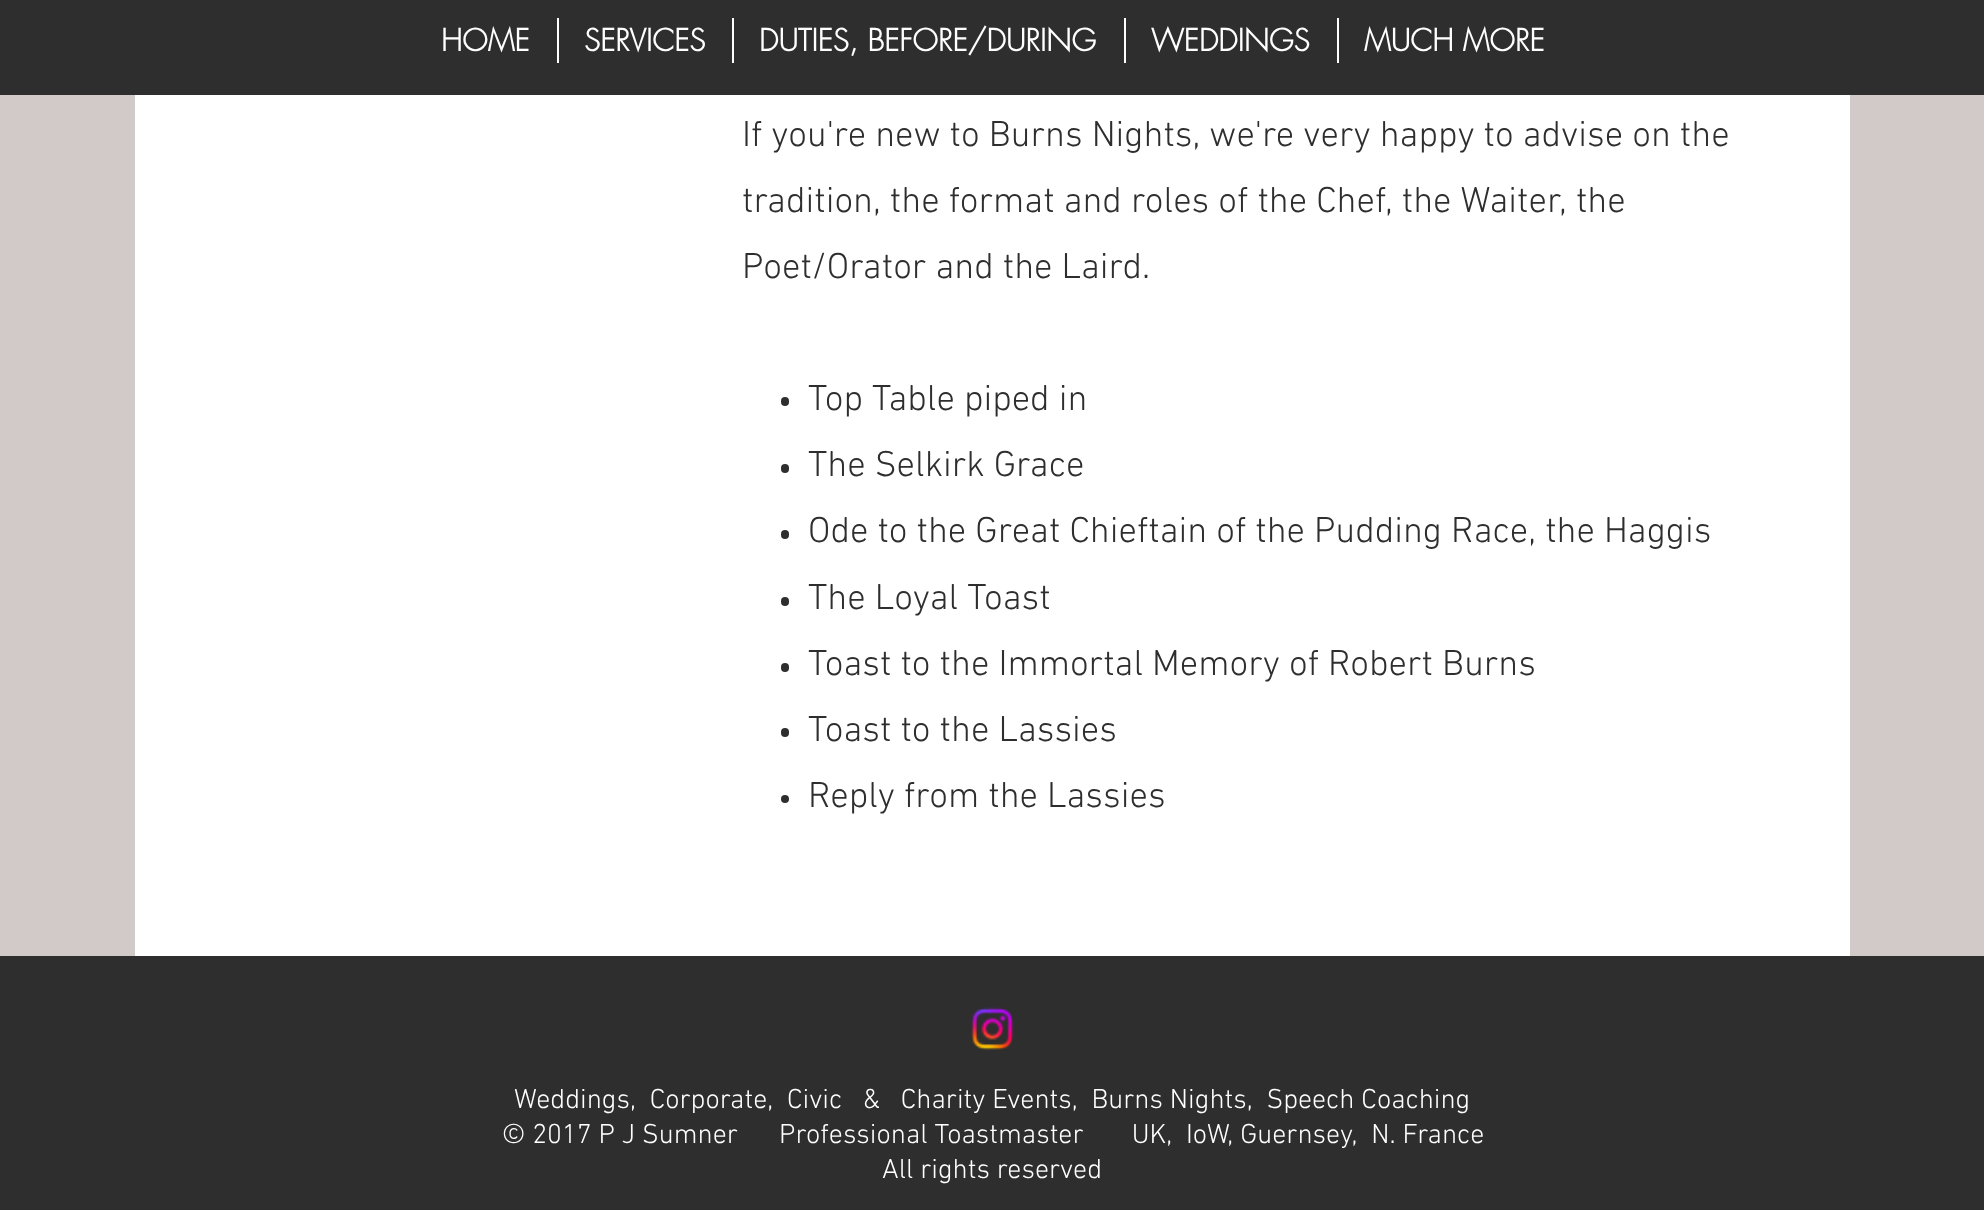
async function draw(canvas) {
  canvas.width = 1984
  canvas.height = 1210
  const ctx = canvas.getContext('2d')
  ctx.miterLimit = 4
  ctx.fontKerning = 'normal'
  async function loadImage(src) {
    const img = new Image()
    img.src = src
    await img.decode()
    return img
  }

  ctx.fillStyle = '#d1cac9'
  ctx.fillRect(0, 0, 1984, 1210)
  ctx.fillStyle = '#2f2e2e'
  ctx.fillRect(0, 0, 1984, 95)
  ctx.font = 'bold 29.75px futura'
  ctx.fillStyle = '#fff'
  ctx.fillText('HOME', 441, 51)
  ctx.fillRect(557, 18, 2, 45)
  ctx.fillText('SERVICES', 584, 51)
  ctx.fillRect(732, 18, 2, 45)
  ctx.fillText('DUTIES, BEFORE/DURING', 759, 51)
  ctx.fillRect(1124, 18, 2, 45)
  ctx.fillText('WEDDINGS', 1151, 51)
  ctx.fillRect(1337, 18, 2, 45)
  ctx.fillText('MUCH MORE', 1364, 51)
  ctx.fillRect(135, 95, 1715, 861)
  ctx.font = '300 36.75px "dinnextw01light"'
  ctx.fillStyle = '#2f2e2e'
  ctx.fillText('If you\'re new to Burns Nights, we\'re very happy to advise on the', 742, 146)
  ctx.fillText('tradition, the format and roles of the Chef, the Waiter, the', 742, 212)
  ctx.fillText('Poet/Orator and the Laird.', 742, 278)
  ctx.beginPath()
  ctx.roundRect(781, 397, 8, 9, 4)
  ctx.fill()
  ctx.fillText('Top Table piped in', 808, 410)
  ctx.beginPath()
  ctx.roundRect(781, 464, 8, 9, 4)
  ctx.fill()
  ctx.fillText('The Selkirk Grace', 808, 476)
  ctx.beginPath()
  ctx.roundRect(781, 530, 8, 9, 4)
  ctx.fill()
  ctx.fillText('Ode to the Great Chieftain of the Pudding Race, the Haggis', 808, 542)
  ctx.beginPath()
  ctx.roundRect(781, 597, 8, 9, 4)
  ctx.fill()
  ctx.fillText('The Loyal Toast', 808, 609)
  ctx.beginPath()
  ctx.roundRect(781, 663, 8, 9, 4)
  ctx.fill()
  ctx.fillText('Toast to the Immortal Memory of Robert Burns', 808, 675)
  ctx.beginPath()
  ctx.roundRect(781, 728, 8, 9, 4)
  ctx.fill()
  ctx.fillText('Toast to the Lassies', 808, 741)
  ctx.beginPath()
  ctx.arc(785, 799, 4, 0, 2 * Math.PI)
  ctx.fill()
  ctx.fillText('Reply from the Lassies', 808, 807)
  ctx.fillRect(0, 956, 1984, 254)
  ctx.drawImage(await loadImage('image0.png'), 971, 1007, 43, 43)
  ctx.font = '300 28px "dinnextw01light"'
  ctx.fillStyle = '#fff'
  ctx.fillText('Weddings,  Corporate,  Civic   &   Charity Events,  Burns Nights,  Speech Coaching', 514, 1108)
  ctx.fillText('© 2017 P J Sumner      Professional Toastmaster       UK,  IoW, Guernsey,  N. France', 502, 1143)
  ctx.fillText('All rights reserved', 882, 1178)
}

draw(document.querySelector('canvas'))
